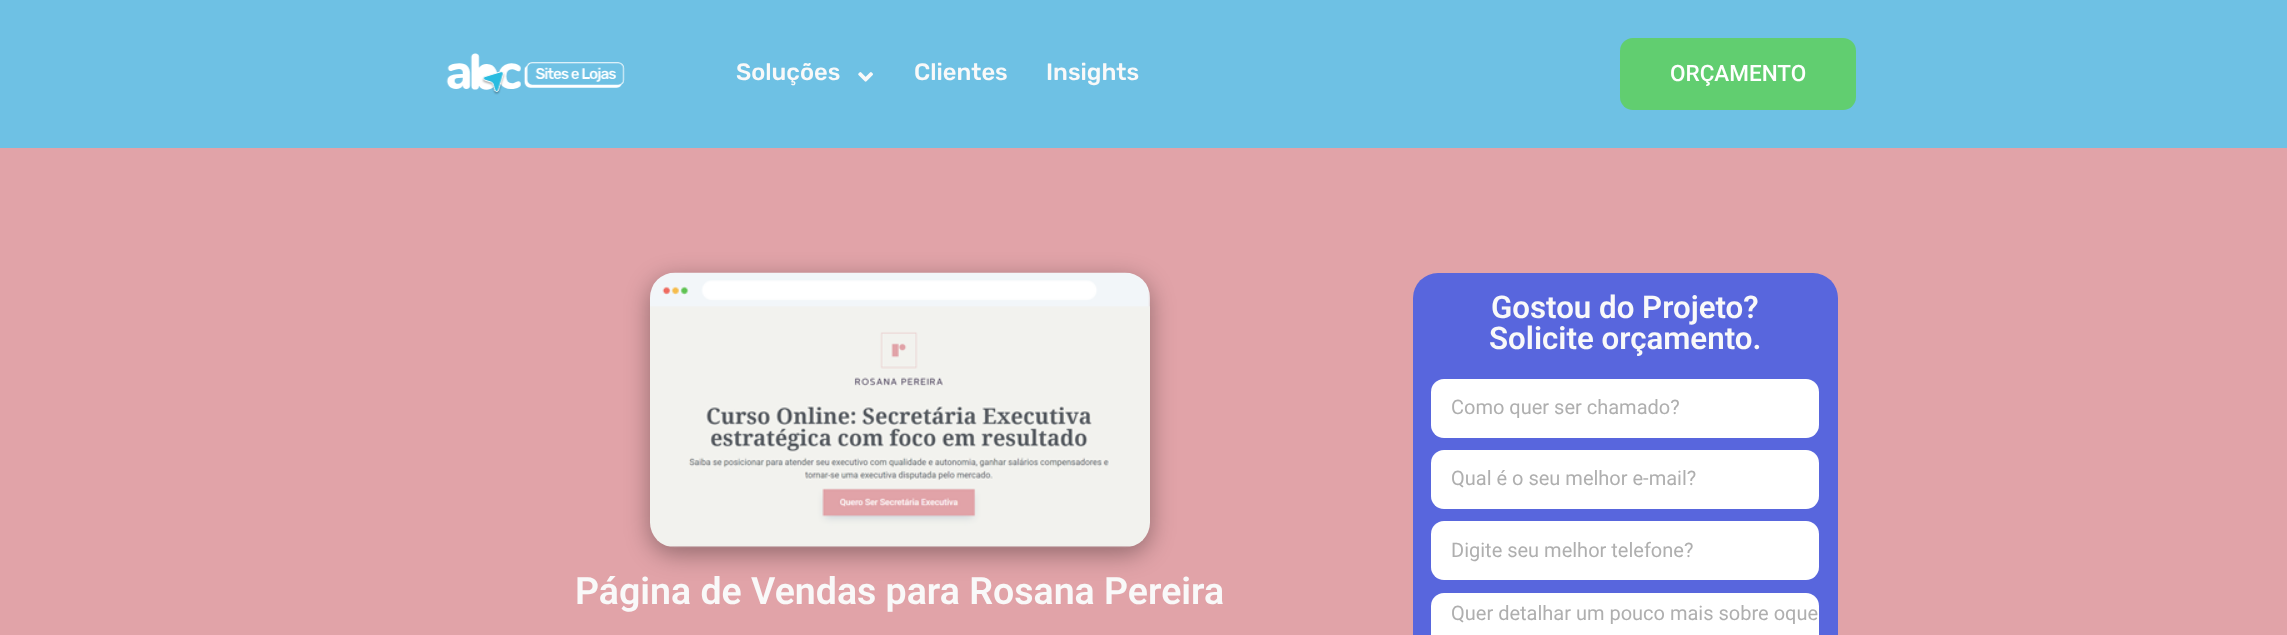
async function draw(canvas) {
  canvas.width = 2287
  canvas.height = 635
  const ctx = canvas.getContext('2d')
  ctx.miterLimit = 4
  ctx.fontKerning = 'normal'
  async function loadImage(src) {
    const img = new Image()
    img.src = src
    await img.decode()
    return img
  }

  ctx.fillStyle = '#6ec1e4'
  ctx.fillRect(0, 0, 2287, 635)
  ctx.drawImage(await loadImage('image0.png'), 446, 53, 179, 42)
  ctx.font = '500 23.75px Rubik'
  ctx.fillStyle = '#f9f9f9'
  ctx.fillText('Soluções', 736, 80)
  ctx.drawImage(await loadImage('image1.png'), 858, 72, 15, 10)
  ctx.fillText('Clientes', 914, 80)
  ctx.fillText('Insights', 1046, 80)
  ctx.fillStyle = '#61ce70'
  ctx.beginPath()
  ctx.roundRect(1620, 38, 236, 72, 13)
  ctx.fill()
  ctx.font = '500 22.5px Roboto'
  ctx.fillStyle = '#fff'
  ctx.fillText('ORÇAMENTO', 1670, 81)
  ctx.fillStyle = '#e1a3a8'
  ctx.fillRect(0, 148, 2287, 487)
  ctx.fillStyle = '#00000059'
  ctx.filter = 'blur(12.5px)'
  ctx.beginPath()
  ctx.roundRect(650, 279, 500, 275, 25)
  ctx.fill()
  ctx.filter = 'none'
  ctx.drawImage(await loadImage('image2.png'), 650, 272, 500, 276)
  ctx.font = '600 37.5px Roboto'
  ctx.fillStyle = '#f9f9f9'
  ctx.fillText('Página de Vendas para Rosana Pereira', 575, 604)
  ctx.fillStyle = '#5866dd'
  ctx.beginPath()
  ctx.roundRect(1413, 273, 425, 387, 25)
  ctx.fill()
  ctx.font = '600 31.25px Roboto'
  ctx.fillStyle = '#f9f9f9'
  ctx.fillText('Gostou do Projeto?', 1491, 318)
  ctx.fillText('Solicite orçamento.', 1489, 349)
  ctx.fillStyle = '#fff'
  ctx.beginPath()
  ctx.roundRect(1431, 379, 388, 59, 13)
  ctx.fill()
  ctx.font = '20px Roboto'
  ctx.fillStyle = '#afafaf'
  ctx.fillText('Como quer ser chamado?', 1451, 414)
  ctx.fillStyle = '#fff'
  ctx.beginPath()
  ctx.roundRect(1431, 450, 388, 59, 13)
  ctx.fill()
  ctx.fillStyle = '#afafaf'
  ctx.fillText('Qual é o seu melhor e-mail?', 1451, 485)
  ctx.fillStyle = '#fff'
  ctx.beginPath()
  ctx.roundRect(1431, 521, 388, 59, 13)
  ctx.fill()
  ctx.fillStyle = '#afafaf'
  ctx.fillText('Digite seu melhor telefone?', 1451, 557)
  ctx.fillStyle = '#fff'
  ctx.beginPath()
  ctx.roundRect(1431, 593, 388, 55, 13)
  ctx.fill()
  ctx.fillStyle = '#afafaf'
  ctx.fillText('Quer detalhar um pouco mais sobre oque', 1451, 620)
}

draw(document.querySelector('canvas'))
